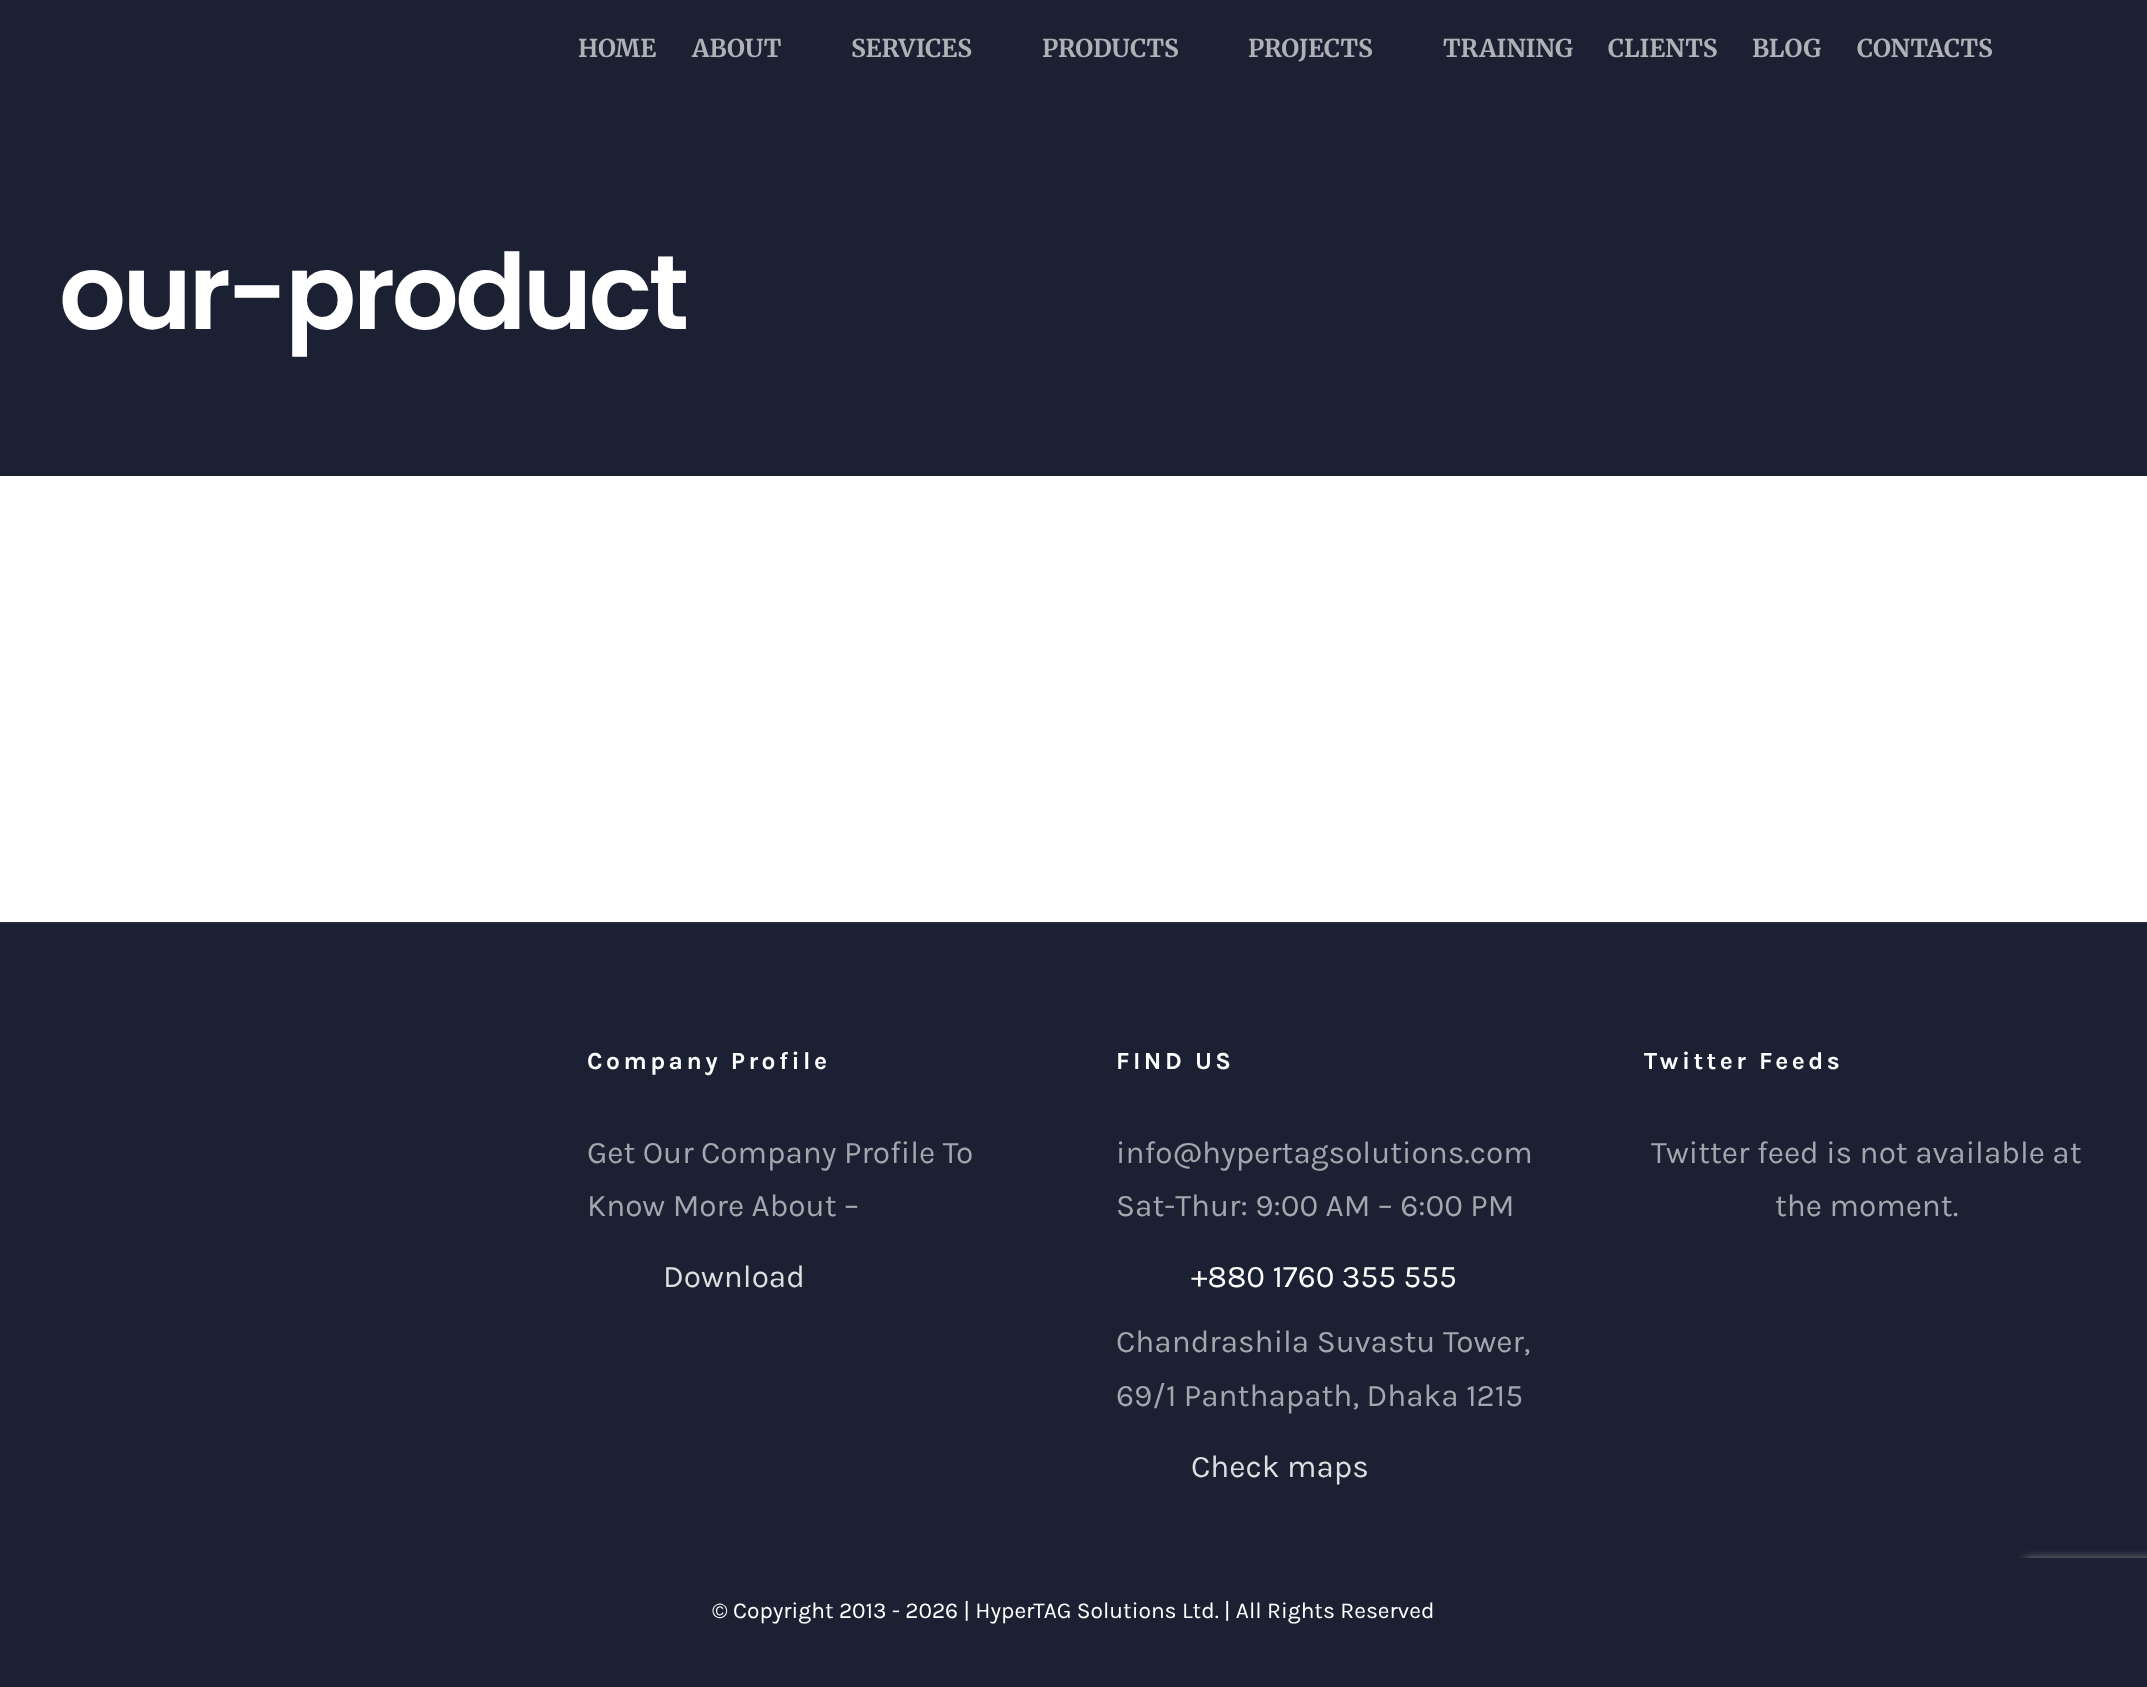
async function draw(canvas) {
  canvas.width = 2147
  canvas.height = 1687
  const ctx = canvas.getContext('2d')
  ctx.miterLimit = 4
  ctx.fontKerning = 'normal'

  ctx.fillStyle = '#fff'
  ctx.fillRect(0, 0, 2147, 1687)
  ctx.fillStyle = '#1b2032'
  ctx.fillRect(0, 0, 2147, 476)
  ctx.font = '300 24.5px Merriweather'
  ctx.fillStyle = '#afb1b7'
  ctx.fillText('HOME', 578, 57)
  ctx.fillText('ABOUT', 692, 57)
  ctx.fillText('SERVICES', 851, 57)
  ctx.fillText('PRODUCTS', 1042, 57)
  ctx.fillText('PROJECTS', 1248, 57)
  ctx.fillText('TRAINING', 1443, 57)
  ctx.fillText('CLIENTS', 1608, 57)
  ctx.fillText('BLOG', 1752, 57)
  ctx.fillText('CONTACTS', 1857, 57)
  ctx.letterSpacing = '-3.5px'
  ctx.font = '600 105px Poppins'
  ctx.fillStyle = '#fff'
  ctx.fillText('our-product', 59, 329)
  ctx.fillStyle = '#1b2032'
  ctx.fillRect(0, 924, 2147, 634)
  ctx.fillStyle = '#242a39'
  ctx.fillRect(0, 922, 2147, 2)
  ctx.letterSpacing = '3.5px'
  ctx.font = 'bold 24.5px Karla'
  ctx.fillStyle = '#fff'
  ctx.fillText('Company Profile', 587, 1069)
  ctx.letterSpacing = '0px'
  ctx.font = '31.5px Karla'
  ctx.fillStyle = '#a4a6ad'
  ctx.fillText('Get Our Company Profile To', 587, 1163)
  ctx.fillText('Know More About –', 587, 1216)
  ctx.fillStyle = '#dddee0'
  ctx.fillText('Download', 663, 1287)
  ctx.letterSpacing = '3.5px'
  ctx.font = 'bold 24.5px Karla'
  ctx.fillStyle = '#fff'
  ctx.fillText('FIND US', 1116, 1069)
  ctx.letterSpacing = '0px'
  ctx.font = '31.5px Karla'
  ctx.fillStyle = '#a4a6ad'
  ctx.fillText('info@hypertagsolutions.com', 1116, 1163)
  ctx.fillText('Sat-Thur: 9:00 AM – 6:00 PM', 1116, 1216)
  ctx.fillStyle = '#fff'
  ctx.fillText('+880 1760 355 555', 1191, 1287)
  ctx.fillStyle = '#a4a6ad'
  ctx.fillText('Chandrashila Suvastu Tower,', 1116, 1352)
  ctx.fillText('69/1 Panthapath, Dhaka 1215', 1116, 1406)
  ctx.fillStyle = '#dddee0'
  ctx.fillText('Check maps', 1191, 1477)
  ctx.letterSpacing = '3.5px'
  ctx.font = 'bold 24.5px Karla'
  ctx.fillStyle = '#fff'
  ctx.fillText('Twitter Feeds', 1644, 1069)
  ctx.letterSpacing = '0px'
  ctx.font = '31.5px Karla'
  ctx.fillStyle = '#a4a6ad'
  ctx.fillText('Twitter feed is not available at', 1651, 1163)
  ctx.fillText('the moment.', 1775, 1216)
  ctx.fillStyle = '#808080'
  ctx.filter = 'blur(4.5px)'
  ctx.beginPath()
  ctx.roundRect(2025, 1558, 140, 105, 4)
  ctx.fill()
  ctx.filter = 'none'
  ctx.fillStyle = '#1b2032'
  ctx.fillRect(0, 1558, 2147, 129)
  ctx.font = '22.75px Karla'
  ctx.fillStyle = '#fff'
  ctx.fillText('© Copyright 2013 - 2026 | HyperTAG Solutions Ltd. | All Rights Reserved', 712, 1618)
}

draw(document.querySelector('canvas'))
